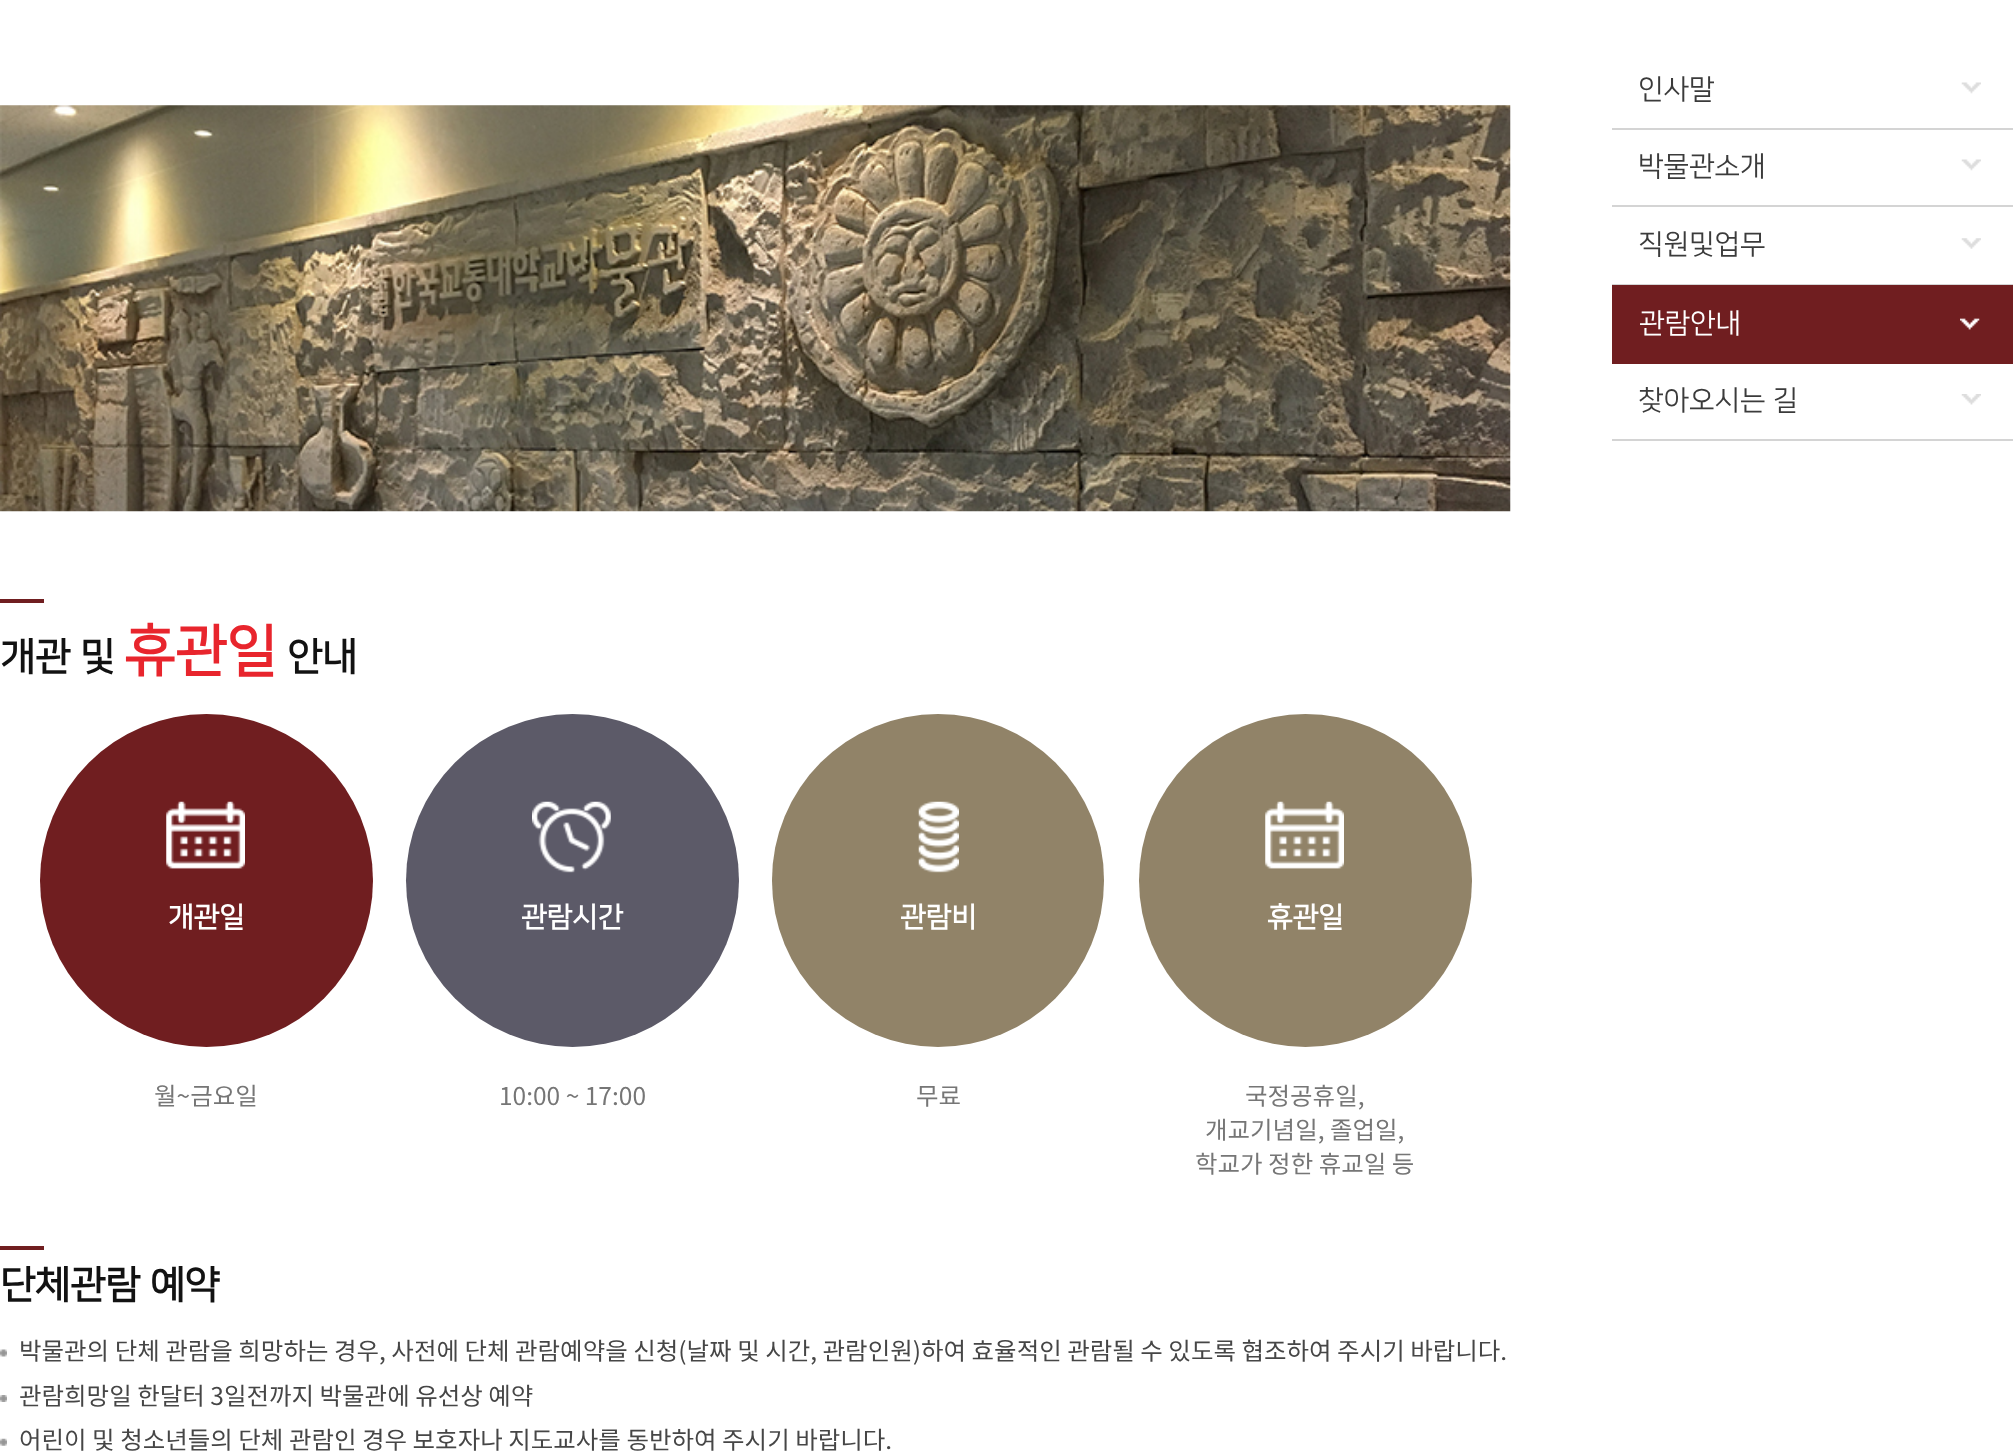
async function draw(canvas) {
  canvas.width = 2013
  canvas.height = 1455
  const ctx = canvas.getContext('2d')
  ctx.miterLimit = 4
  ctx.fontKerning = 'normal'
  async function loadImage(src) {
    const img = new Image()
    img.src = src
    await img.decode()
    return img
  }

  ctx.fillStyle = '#fff'
  ctx.fillRect(0, 0, 2013, 1455)
  ctx.fillStyle = '#d4d4d4'
  ctx.fillRect(1612, 128, 401, 2)
  ctx.font = '28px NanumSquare'
  ctx.fillStyle = '#3b3b3b'
  ctx.fillText('인사말', 1638, 98)
  ctx.drawImage(await loadImage('image0.png'), 1961, 82, 20, 12)
  ctx.fillStyle = '#d4d4d4'
  ctx.fillRect(1612, 205, 401, 2)
  ctx.fillStyle = '#3b3b3b'
  ctx.fillText('박물관소개', 1638, 175)
  ctx.drawImage(await loadImage('image0.png'), 1961, 159, 20, 12)
  ctx.fillStyle = '#d4d4d4'
  ctx.fillRect(1612, 284, 401, 1)
  ctx.fillStyle = '#3b3b3b'
  ctx.fillText('직원및업무', 1638, 253)
  ctx.drawImage(await loadImage('image1.png'), 1961, 238, 20, 11)
  ctx.fillStyle = '#701e20'
  ctx.fillRect(1612, 285, 401, 79)
  ctx.fillStyle = '#fff'
  ctx.fillText('관람안내', 1639, 332)
  ctx.drawImage(await loadImage('image2.png'), 1960, 318, 20, 12)
  ctx.fillStyle = '#d4d4d4'
  ctx.fillRect(1612, 439, 401, 2)
  ctx.fillStyle = '#3b3b3b'
  ctx.fillText('찾아오시는 길', 1638, 409)
  ctx.drawImage(await loadImage('image3.png'), 1961, 394, 20, 11)
  ctx.drawImage(await loadImage('image4.png'), 0, 105, 1511, 407)
  ctx.fillStyle = '#701e20'
  ctx.fillRect(0, 599, 44, 4)
  ctx.font = 'bold 38.5px NanumSquare'
  ctx.fillStyle = '#121212'
  ctx.fillText('개관 및', 0, 669)
  ctx.font = 'bold 56px NanumSquare'
  ctx.fillStyle = '#e8252d'
  ctx.fillText('휴관일', 124, 669)
  ctx.font = 'bold 38.5px NanumSquare'
  ctx.fillStyle = '#121212'
  ctx.fillText('안내', 287, 669)
  ctx.fillStyle = '#701e20'
  ctx.beginPath()
  ctx.arc(206.5, 880.5, 166.5, 0, 2 * Math.PI)
  ctx.fill()
  ctx.drawImage(await loadImage('image5.png'), 166, 801, 79, 68)
  ctx.font = 'bold 28px NanumSquare'
  ctx.fillStyle = '#fff'
  ctx.fillText('개관일', 168, 926)
  ctx.font = '24.5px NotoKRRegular'
  ctx.fillStyle = '#767676'
  ctx.fillText('월~금요일', 154, 1105)
  ctx.fillStyle = '#5c5a68'
  ctx.beginPath()
  ctx.arc(572.5, 880.5, 166.5, 0, 2 * Math.PI)
  ctx.fill()
  ctx.drawImage(await loadImage('image6.png'), 532, 801, 79, 72)
  ctx.font = 'bold 28px NanumSquare'
  ctx.fillStyle = '#fff'
  ctx.fillText('관람시간', 521, 926)
  ctx.font = '24.5px NotoKRRegular'
  ctx.fillStyle = '#767676'
  ctx.fillText('10:00 ~ 17:00', 499, 1105)
  ctx.fillStyle = '#918368'
  ctx.beginPath()
  ctx.roundRect(772, 714, 332, 333, 166)
  ctx.fill()
  ctx.drawImage(await loadImage('image7.png'), 918, 801, 41, 72)
  ctx.font = 'bold 28px NanumSquare'
  ctx.fillStyle = '#fff'
  ctx.fillText('관람비', 900, 926)
  ctx.font = '24.5px NotoKRRegular'
  ctx.fillStyle = '#767676'
  ctx.fillText('무료', 916, 1105)
  ctx.fillStyle = '#918368'
  ctx.beginPath()
  ctx.arc(1305.5, 880.5, 166.5, 0, 2 * Math.PI)
  ctx.fill()
  ctx.drawImage(await loadImage('image8.png'), 1265, 801, 79, 68)
  ctx.font = 'bold 28px NanumSquare'
  ctx.fillStyle = '#fff'
  ctx.fillText('휴관일', 1267, 926)
  ctx.font = '24.5px NotoKRRegular'
  ctx.fillStyle = '#767676'
  ctx.fillText('국정공휴일,', 1245, 1105)
  ctx.fillText('개교기념일, 졸업일,', 1205, 1139)
  ctx.fillText('학교가 정한 휴교일 등', 1195, 1173)
  ctx.fillStyle = '#701e20'
  ctx.fillRect(0, 1246, 44, 4)
  ctx.font = 'bold 38.5px NanumSquare'
  ctx.fillStyle = '#121212'
  ctx.fillText('단체관람 예약', 0, 1297)
  ctx.drawImage(await loadImage('image9.png'), 0, 1349, 7, 8)
  ctx.font = '24.5px NotoKRRegular'
  ctx.fillStyle = '#464646'
  ctx.fillText('박물관의 단체 관람을 희망하는 경우, 사전에 단체 관람예약을 신청(날짜 및 시간, 관람인원)하여 효율적인 관람될 수 있도록 협조하여 주시기 바랍니다.', 19, 1360)
  ctx.drawImage(await loadImage('image10.png'), 0, 1395, 7, 7)
  ctx.fillText('관람희망일 한달터 3일전까지 박물관에 유선상 예약', 19, 1405)
  ctx.drawImage(await loadImage('image11.png'), 0, 1438, 7, 8)
  ctx.fillText('어린이 및 청소년들의 단체 관람인 경우 보호자나 지도교사를 동반하여 주시기 바랍니다.', 19, 1449)
}

draw(document.querySelector('canvas'))
